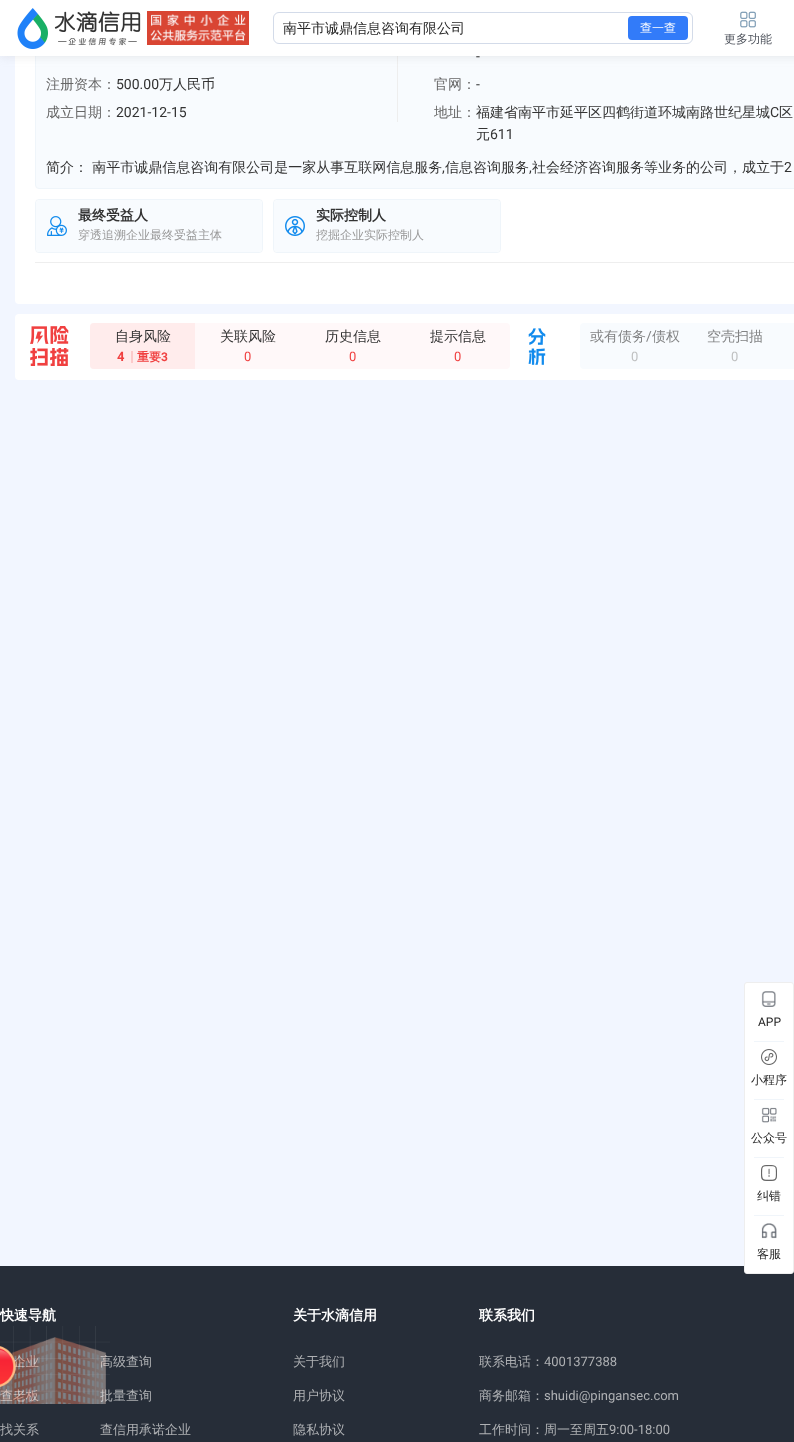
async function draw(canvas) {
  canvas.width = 794
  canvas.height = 1442
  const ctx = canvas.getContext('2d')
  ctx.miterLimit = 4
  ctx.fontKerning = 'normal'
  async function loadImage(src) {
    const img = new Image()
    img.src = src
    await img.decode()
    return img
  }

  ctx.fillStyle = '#f2f6ff'
  ctx.fillRect(0, 0, 794, 1442)
  ctx.fillStyle = '#fff'
  ctx.beginPath()
  ctx.roundRect(15, -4, 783, 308, 4)
  ctx.fill()
  ctx.fillStyle = '#f8fbfe'
  ctx.beginPath()
  ctx.roundRect(35.5, 6.5, 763, 182, 3.5)
  ctx.fill()
  ctx.strokeStyle = '#eff5fa'
  ctx.stroke()
  ctx.fillStyle = '#eee'
  ctx.fillRect(397, 56, 1, 66)
  ctx.fillStyle = '#a1a1a133'
  ctx.filter = 'blur(5px)'
  ctx.beginPath()
  ctx.rect(0, 1, 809, 56)
  ctx.fill()
  ctx.filter = 'none'
  ctx.fillStyle = '#fff'
  ctx.fillRect(0, 0, 794, 56)
  ctx.drawImage(await loadImage('image0.png'), 17, 8, 124, 41)
  ctx.drawImage(await loadImage('image1.png'), 147, 11, 102, 34)
  ctx.beginPath()
  ctx.roundRect(273.5, 12.5, 419, 31, 5.5)
  ctx.strokeStyle = '#d3dbe9'
  ctx.stroke()
  ctx.font = '500 14px WenQuanYi Zen Hei'
  ctx.fillStyle = '#262626'
  ctx.fillText('南平市诚鼎信息咨询有限公司', 283, 33)
  ctx.fillStyle = '#327bf9'
  ctx.beginPath()
  ctx.roundRect(628, 16, 60, 24, 4)
  ctx.fill()
  ctx.font = '500 12px WenQuanYi Zen Hei'
  ctx.fillStyle = '#fff'
  ctx.fillText('查一查', 640, 32)
  ctx.drawImage(await loadImage('image2.png'), 740, 11, 16, 17)
  ctx.fillStyle = '#50555e'
  ctx.fillText('更多功能', 724, 43)
  ctx.font = '500 14px WenQuanYi Zen Hei'
  ctx.fillStyle = '#666'
  ctx.fillText('注册资本：', 46, 89)
  ctx.font = '14px Roboto'
  ctx.fillStyle = '#333'
  ctx.fillText('500.00', 116, 89)
  ctx.font = '500 14px WenQuanYi Zen Hei'
  ctx.fillText('万人民币', 159, 89)
  ctx.fillStyle = '#666'
  ctx.fillText('成立日期：', 46, 117)
  ctx.font = '14px Roboto'
  ctx.fillStyle = '#333'
  ctx.fillText('2021-12-15', 116, 117)
  ctx.fillText('-', 476, 61)
  ctx.font = '500 14px WenQuanYi Zen Hei'
  ctx.fillStyle = '#666'
  ctx.fillText('官网：', 434, 89)
  ctx.font = '14px Roboto'
  ctx.fillStyle = '#333'
  ctx.fillText('-', 476, 89)
  ctx.font = '500 14px WenQuanYi Zen Hei'
  ctx.fillStyle = '#666'
  ctx.fillText('地址：', 434, 117)
  ctx.fillStyle = '#333'
  ctx.fillText('福建省南平市延平区四鹤街道环城南路世纪星城', 476, 117)
  ctx.font = '14px Roboto'
  ctx.fillText('C', 770, 117)
  ctx.font = '500 14px WenQuanYi Zen Hei'
  ctx.fillText('区', 779, 117)
  ctx.fillText('元', 476, 139)
  ctx.font = '14px Roboto'
  ctx.fillText('611', 490, 139)
  ctx.font = '500 14px WenQuanYi Zen Hei'
  ctx.fillText('简介： 南平市诚鼎信息咨询有限公司是一家从事互联网信息服务', 46, 172)
  ctx.font = '14px Roboto'
  ctx.fillText(',', 442, 172)
  ctx.font = '500 14px WenQuanYi Zen Hei'
  ctx.fillText('信息咨询服务', 445, 172)
  ctx.font = '14px Roboto'
  ctx.fillText(',', 529, 172)
  ctx.font = '500 14px WenQuanYi Zen Hei'
  ctx.fillText('社会经济咨询服务等业务的公司，成立于', 532, 172)
  ctx.font = '14px Roboto'
  ctx.fillText('2', 784, 172)
  ctx.beginPath()
  ctx.roundRect(35.5, 199.5, 227, 53, 3.5)
  ctx.strokeStyle = '#eff5fa'
  ctx.stroke()
  ctx.save()
  ctx.beginPath()
  ctx.roundRect(36, 200, 226, 52, 3)
  ctx.clip()
  ctx.fillStyle = '#f8fbfe'
  ctx.beginPath()
  ctx.roundRect(36, 200, 226, 52, 4)
  ctx.fill()
  ctx.restore()
  ctx.drawImage(await loadImage('image3.png'), 47, 216, 20, 20)
  ctx.font = 'bold 14px WenQuanYi Zen Hei'
  ctx.fillText('最终受益人', 78, 220)
  ctx.font = '500 12px WenQuanYi Zen Hei'
  ctx.fillStyle = '#999'
  ctx.fillText('穿透追溯企业最终受益主体', 78, 239)
  ctx.beginPath()
  ctx.roundRect(273.5, 199.5, 227, 53, 3.5)
  ctx.stroke()
  ctx.save()
  ctx.beginPath()
  ctx.roundRect(274, 200, 226, 52, 3)
  ctx.clip()
  ctx.fillStyle = '#f8fbfe'
  ctx.beginPath()
  ctx.roundRect(274, 200, 226, 52, 4)
  ctx.fill()
  ctx.restore()
  ctx.drawImage(await loadImage('image4.png'), 285, 216, 20, 20)
  ctx.font = 'bold 14px WenQuanYi Zen Hei'
  ctx.fillStyle = '#333'
  ctx.fillText('实际控制人', 316, 220)
  ctx.font = '500 12px WenQuanYi Zen Hei'
  ctx.fillStyle = '#999'
  ctx.fillText('挖掘企业实际控制人', 316, 239)
  ctx.fillStyle = '#eee'
  ctx.fillRect(35, 262, 759, 1)
  ctx.fillStyle = '#fff'
  ctx.beginPath()
  ctx.roundRect(15, 314, 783, 66, 4)
  ctx.fill()
  ctx.drawImage(await loadImage('image5.png'), 30, 326, 39, 40)
  ctx.fillStyle = '#fff8f9'
  ctx.beginPath()
  ctx.roundRect(90, 323, 420, 46, 4)
  ctx.fill()
  ctx.fillStyle = '#ffecec'
  ctx.beginPath()
  ctx.roundRect(90, 323, 105, 46, [4, 0, 0, 4])
  ctx.fill()
  ctx.font = '500 14px WenQuanYi Zen Hei'
  ctx.fillStyle = '#333'
  ctx.fillText('自身风险', 115, 341)
  ctx.font = 'bold 13px Roboto'
  ctx.fillStyle = '#f04040'
  ctx.fillText('4', 117, 361)
  ctx.fillStyle = '#fccaca'
  ctx.fillRect(131, 351, 2, 12)
  ctx.font = 'bold 12px WenQuanYi Zen Hei'
  ctx.fillStyle = '#f04040'
  ctx.fillText('重要', 137, 361)
  ctx.font = 'bold 12px Roboto'
  ctx.fillText('3', 161, 361)
  ctx.font = '500 14px WenQuanYi Zen Hei'
  ctx.fillStyle = '#333'
  ctx.fillText('关联风险', 220, 341)
  ctx.font = '13px Roboto'
  ctx.fillStyle = '#f04040'
  ctx.fillText('0', 244, 361)
  ctx.font = '500 14px WenQuanYi Zen Hei'
  ctx.fillStyle = '#333'
  ctx.fillText('历史信息', 325, 341)
  ctx.font = '13px Roboto'
  ctx.fillStyle = '#f04040'
  ctx.fillText('0', 349, 361)
  ctx.font = '500 14px WenQuanYi Zen Hei'
  ctx.fillStyle = '#333'
  ctx.fillText('提示信息', 430, 341)
  ctx.font = '13px Roboto'
  ctx.fillStyle = '#f04040'
  ctx.fillText('0', 454, 361)
  ctx.drawImage(await loadImage('image6.png'), 528, 328, 18, 37)
  ctx.fillStyle = '#f8fbfe'
  ctx.beginPath()
  ctx.roundRect(580, 323, 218, 46, 4)
  ctx.fill()
  ctx.font = '500 14px WenQuanYi Zen Hei'
  ctx.fillStyle = '#828384'
  ctx.fillText('或有债务', 590, 341)
  ctx.font = '14px Roboto'
  ctx.fillText('/', 646, 341)
  ctx.font = '500 14px WenQuanYi Zen Hei'
  ctx.fillText('债权', 652, 341)
  ctx.font = '13px Roboto'
  ctx.fillStyle = '#bfc0c1'
  ctx.fillText('0', 631, 361)
  ctx.font = '500 14px WenQuanYi Zen Hei'
  ctx.fillStyle = '#828384'
  ctx.fillText('空壳扫描', 707, 341)
  ctx.font = '13px Roboto'
  ctx.fillStyle = '#bfc0c1'
  ctx.fillText('0', 731, 361)
  ctx.fillStyle = '#262d38'
  ctx.fillRect(0, 1266, 794, 176)
  ctx.fillStyle = '#fff'
  ctx.beginPath()
  ctx.roundRect(744.5, 982.5, 49, 291, 2.5)
  ctx.fill()
  ctx.strokeStyle = '#eee'
  ctx.stroke()
  ctx.drawImage(await loadImage('image7.png'), 761, 991, 15, 16)
  ctx.font = '12px Roboto'
  ctx.fillStyle = '#262626'
  ctx.fillText('APP', 758, 1026)
  ctx.drawImage(await loadImage('image8.png'), 761, 1049, 16, 16)
  ctx.fillStyle = '#f0f5fa'
  ctx.fillRect(754, 1041, 30, 1)
  ctx.font = '500 12px WenQuanYi Zen Hei'
  ctx.fillStyle = '#262626'
  ctx.fillText('小程序', 751, 1084)
  ctx.drawImage(await loadImage('image9.png'), 761, 1107, 16, 16)
  ctx.fillStyle = '#f0f5fa'
  ctx.fillRect(754, 1099, 30, 1)
  ctx.fillStyle = '#262626'
  ctx.fillText('公众号', 751, 1142)
  ctx.drawImage(await loadImage('image10.png'), 761, 1165, 16, 16)
  ctx.fillStyle = '#f0f5fa'
  ctx.fillRect(754, 1157, 30, 1)
  ctx.fillStyle = '#262626'
  ctx.fillText('纠错', 757, 1200)
  ctx.drawImage(await loadImage('image11.png'), 761, 1223, 16, 16)
  ctx.fillStyle = '#f0f5fa'
  ctx.fillRect(754, 1215, 30, 1)
  ctx.fillStyle = '#262626'
  ctx.fillText('客服', 757, 1258)
  ctx.font = 'bold 14px WenQuanYi Zen Hei'
  ctx.fillStyle = '#fff'
  ctx.fillText('快速导航', 0, 1320)
  ctx.font = '500 13px WenQuanYi Zen Hei'
  ctx.fillStyle = '#afb1b4'
  ctx.fillText('企业', 13, 1366)
  ctx.fillText('查老板', 0, 1400)
  ctx.fillText('找关系', 0, 1434)
  ctx.fillText('高级查询', 100, 1366)
  ctx.fillText('批量查询', 100, 1400)
  ctx.fillText('查信用承诺企业', 100, 1434)
  ctx.font = 'bold 14px WenQuanYi Zen Hei'
  ctx.fillStyle = '#fff'
  ctx.fillText('关于水滴信用', 293, 1320)
  ctx.font = '500 13px WenQuanYi Zen Hei'
  ctx.fillStyle = '#afb1b4'
  ctx.fillText('关于我们', 293, 1366)
  ctx.fillText('用户协议', 293, 1400)
  ctx.fillText('隐私协议', 293, 1434)
  ctx.font = 'bold 14px WenQuanYi Zen Hei'
  ctx.fillStyle = '#fff'
  ctx.fillText('联系我们', 479, 1320)
  ctx.font = '500 13px WenQuanYi Zen Hei'
  ctx.fillStyle = '#afb1b4'
  ctx.fillText('联系电话：', 479, 1366)
  ctx.font = '13px Roboto'
  ctx.fillText('4001377388', 544, 1366)
  ctx.font = '500 13px WenQuanYi Zen Hei'
  ctx.fillText('商务邮箱：', 479, 1400)
  ctx.font = '13px Roboto'
  ctx.fillText('shuidi@pingansec.com', 544, 1400)
  ctx.font = '500 13px WenQuanYi Zen Hei'
  ctx.fillText('工作时间：周一至周五', 479, 1434)
  ctx.font = '13px Roboto'
  ctx.fillText('9:00-18:00', 609, 1434)
  ctx.drawImage(await loadImage('image12.png'), 0, 1326, 110, 78)
}

draw(document.querySelector('canvas'))
